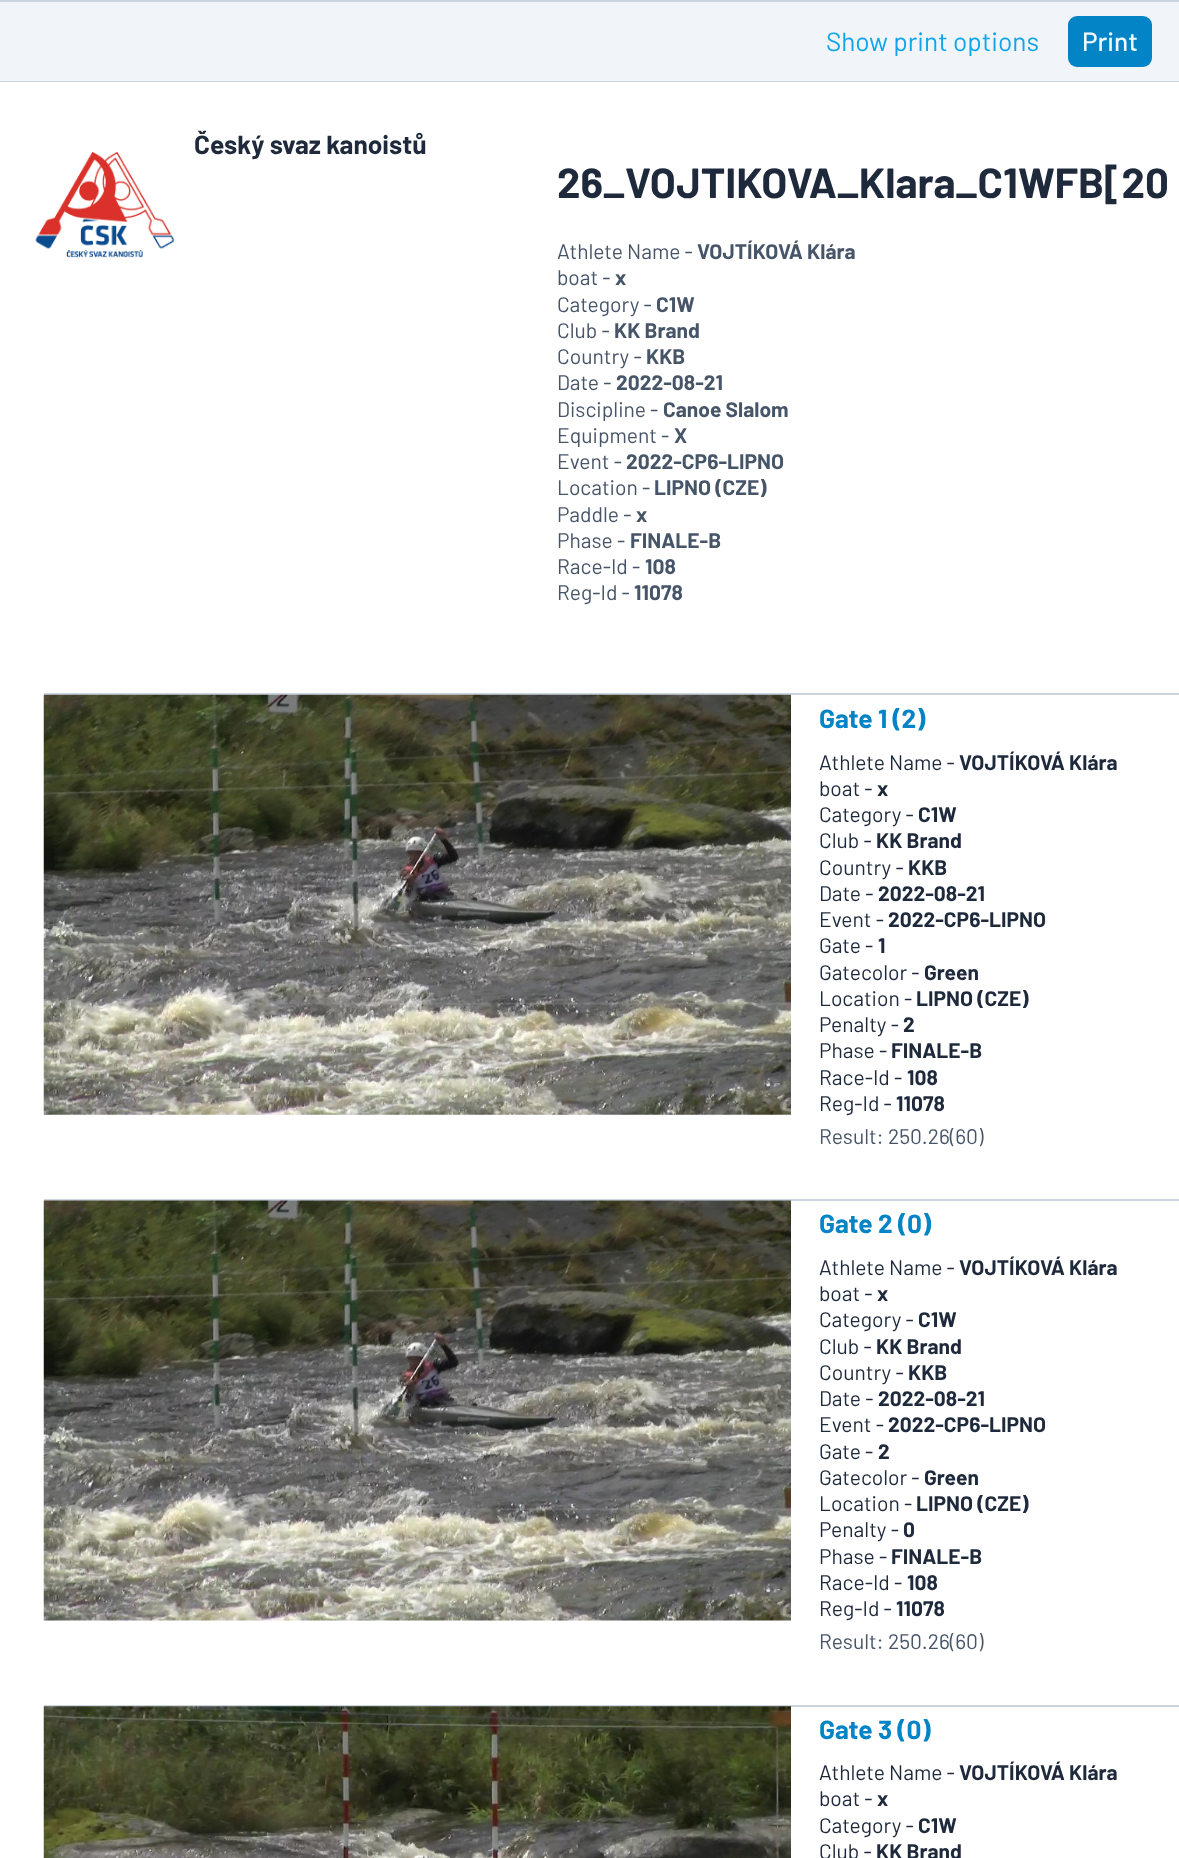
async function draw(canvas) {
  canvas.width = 1179
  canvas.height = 1858
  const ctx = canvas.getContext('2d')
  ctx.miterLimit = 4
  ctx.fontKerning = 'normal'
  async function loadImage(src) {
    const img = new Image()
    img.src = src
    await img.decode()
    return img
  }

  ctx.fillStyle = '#f1f5f9'
  ctx.fillRect(0, 0, 1179, 1858)
  ctx.fillStyle = '#cbd5e1'
  ctx.fillRect(0, 0, 1179, 2)
  ctx.fillRect(0, 81, 1179, 1)
  ctx.font = '26.25px Barlow'
  ctx.fillStyle = '#0ea5e9'
  ctx.fillText('Show print options', 826, 51)
  ctx.fillStyle = '#0284c7'
  ctx.beginPath()
  ctx.roundRect(1068, 16, 84, 51, 9)
  ctx.fill()
  ctx.font = '500 26.25px Barlow'
  ctx.fillStyle = '#f0f9ff'
  ctx.fillText('Print', 1082, 51)
  ctx.fillStyle = '#fff'
  ctx.fillRect(0, 82, 1179, 1776)
  ctx.font = 'bold 26.25px Barlow'
  ctx.fillStyle = '#1e293b'
  ctx.fillText('Český svaz kanoistů', 194, 154)
  ctx.drawImage(await loadImage('image0.png'), 35, 152, 140, 106)
  ctx.font = 'bold 42px Barlow'
  ctx.fillText('26_VOJTIKOVA_Klara_C1WFB[20', 557, 198)
  ctx.font = '21px Barlow'
  ctx.fillStyle = '#475569'
  ctx.fillText('Athlete Name -', 557, 259)
  ctx.font = 'bold 21px Barlow'
  ctx.fillText('VOJTÍKOVÁ Klára', 697, 259)
  ctx.font = '21px Barlow'
  ctx.fillText('boat -', 557, 285)
  ctx.font = 'bold 21px Barlow'
  ctx.fillText('x', 615, 285)
  ctx.font = '21px Barlow'
  ctx.fillText('Category -', 557, 312)
  ctx.font = 'bold 21px Barlow'
  ctx.fillText('C1W', 656, 312)
  ctx.font = '21px Barlow'
  ctx.fillText('Club -', 557, 338)
  ctx.font = 'bold 21px Barlow'
  ctx.fillText('KK Brand', 614, 338)
  ctx.font = '21px Barlow'
  ctx.fillText('Country -', 557, 364)
  ctx.font = 'bold 21px Barlow'
  ctx.fillText('KKB', 646, 364)
  ctx.font = '21px Barlow'
  ctx.fillText('Date -', 557, 390)
  ctx.font = 'bold 21px Barlow'
  ctx.fillText('2022-08-21', 616, 390)
  ctx.font = '21px Barlow'
  ctx.fillText('Discipline -', 557, 417)
  ctx.font = 'bold 21px Barlow'
  ctx.fillText('Canoe Slalom', 663, 417)
  ctx.font = '21px Barlow'
  ctx.fillText('Equipment -', 557, 443)
  ctx.font = 'bold 21px Barlow'
  ctx.fillText('X', 674, 443)
  ctx.font = '21px Barlow'
  ctx.fillText('Event -', 557, 469)
  ctx.font = 'bold 21px Barlow'
  ctx.fillText('2022-CP6-LIPNO', 626, 469)
  ctx.font = '21px Barlow'
  ctx.fillText('Location -', 557, 495)
  ctx.font = 'bold 21px Barlow'
  ctx.fillText('LIPNO (CZE)', 654, 495)
  ctx.font = '21px Barlow'
  ctx.fillText('Paddle -', 557, 522)
  ctx.font = 'bold 21px Barlow'
  ctx.fillText('x', 636, 522)
  ctx.font = '21px Barlow'
  ctx.fillText('Phase -', 557, 548)
  ctx.font = 'bold 21px Barlow'
  ctx.fillText('FINALE-B', 630, 548)
  ctx.font = '21px Barlow'
  ctx.fillText('Race-Id -', 557, 574)
  ctx.font = 'bold 21px Barlow'
  ctx.fillText('108', 645, 574)
  ctx.font = '21px Barlow'
  ctx.fillText('Reg-Id -', 557, 600)
  ctx.font = 'bold 21px Barlow'
  ctx.fillText('11078', 634, 600)
  ctx.fillStyle = '#cbd5e1'
  ctx.fillRect(44, 693, 1135, 2)
  ctx.drawImage(await loadImage('image1.png'), 43, 694, 748, 421)
  ctx.font = 'bold 26.25px Barlow'
  ctx.fillStyle = '#0284c7'
  ctx.fillText('Gate 1 (2)', 819, 728)
  ctx.font = '21px Barlow'
  ctx.fillStyle = '#1e293b'
  ctx.fillText('Athlete Name -', 819, 770)
  ctx.font = 'bold 21px Barlow'
  ctx.fillText('VOJTÍKOVÁ Klára', 959, 770)
  ctx.font = '21px Barlow'
  ctx.fillText('boat -', 819, 796)
  ctx.font = 'bold 21px Barlow'
  ctx.fillText('x', 877, 796)
  ctx.font = '21px Barlow'
  ctx.fillText('Category -', 819, 822)
  ctx.font = 'bold 21px Barlow'
  ctx.fillText('C1W', 918, 822)
  ctx.font = '21px Barlow'
  ctx.fillText('Club -', 819, 848)
  ctx.font = 'bold 21px Barlow'
  ctx.fillText('KK Brand', 876, 848)
  ctx.font = '21px Barlow'
  ctx.fillText('Country -', 819, 875)
  ctx.font = 'bold 21px Barlow'
  ctx.fillText('KKB', 908, 875)
  ctx.font = '21px Barlow'
  ctx.fillText('Date -', 819, 901)
  ctx.font = 'bold 21px Barlow'
  ctx.fillText('2022-08-21', 878, 901)
  ctx.font = '21px Barlow'
  ctx.fillText('Event -', 819, 927)
  ctx.font = 'bold 21px Barlow'
  ctx.fillText('2022-CP6-LIPNO', 888, 927)
  ctx.font = '21px Barlow'
  ctx.fillText('Gate -', 819, 953)
  ctx.font = 'bold 21px Barlow'
  ctx.fillText('1', 878, 953)
  ctx.font = '21px Barlow'
  ctx.fillText('Gatecolor -', 819, 980)
  ctx.font = 'bold 21px Barlow'
  ctx.fillText('Green', 924, 980)
  ctx.font = '21px Barlow'
  ctx.fillText('Location -', 819, 1006)
  ctx.font = 'bold 21px Barlow'
  ctx.fillText('LIPNO (CZE)', 916, 1006)
  ctx.font = '21px Barlow'
  ctx.fillText('Penalty -', 819, 1032)
  ctx.font = 'bold 21px Barlow'
  ctx.fillText('2', 903, 1032)
  ctx.font = '21px Barlow'
  ctx.fillText('Phase -', 819, 1058)
  ctx.font = 'bold 21px Barlow'
  ctx.fillText('FINALE-B', 891, 1058)
  ctx.font = '21px Barlow'
  ctx.fillText('Race-Id -', 819, 1085)
  ctx.font = 'bold 21px Barlow'
  ctx.fillText('108', 907, 1085)
  ctx.font = '21px Barlow'
  ctx.fillText('Reg-Id -', 819, 1111)
  ctx.font = 'bold 21px Barlow'
  ctx.fillText('11078', 896, 1111)
  ctx.font = '21px Barlow'
  ctx.fillStyle = '#475569'
  ctx.fillText('Result: 250.26(60)', 819, 1144)
  ctx.fillStyle = '#cbd5e1'
  ctx.fillRect(44, 1199, 1135, 2)
  ctx.drawImage(await loadImage('image2.png'), 43, 1200, 748, 421)
  ctx.font = 'bold 26.25px Barlow'
  ctx.fillStyle = '#0284c7'
  ctx.fillText('Gate 2 (0)', 819, 1233)
  ctx.font = '21px Barlow'
  ctx.fillStyle = '#1e293b'
  ctx.fillText('Athlete Name -', 819, 1275)
  ctx.font = 'bold 21px Barlow'
  ctx.fillText('VOJTÍKOVÁ Klára', 959, 1275)
  ctx.font = '21px Barlow'
  ctx.fillText('boat -', 819, 1301)
  ctx.font = 'bold 21px Barlow'
  ctx.fillText('x', 877, 1301)
  ctx.font = '21px Barlow'
  ctx.fillText('Category -', 819, 1327)
  ctx.font = 'bold 21px Barlow'
  ctx.fillText('C1W', 918, 1327)
  ctx.font = '21px Barlow'
  ctx.fillText('Club -', 819, 1354)
  ctx.font = 'bold 21px Barlow'
  ctx.fillText('KK Brand', 876, 1354)
  ctx.font = '21px Barlow'
  ctx.fillText('Country -', 819, 1380)
  ctx.font = 'bold 21px Barlow'
  ctx.fillText('KKB', 908, 1380)
  ctx.font = '21px Barlow'
  ctx.fillText('Date -', 819, 1406)
  ctx.font = 'bold 21px Barlow'
  ctx.fillText('2022-08-21', 878, 1406)
  ctx.font = '21px Barlow'
  ctx.fillText('Event -', 819, 1432)
  ctx.font = 'bold 21px Barlow'
  ctx.fillText('2022-CP6-LIPNO', 888, 1432)
  ctx.font = '21px Barlow'
  ctx.fillText('Gate -', 819, 1459)
  ctx.font = 'bold 21px Barlow'
  ctx.fillText('2', 878, 1459)
  ctx.font = '21px Barlow'
  ctx.fillText('Gatecolor -', 819, 1485)
  ctx.font = 'bold 21px Barlow'
  ctx.fillText('Green', 924, 1485)
  ctx.font = '21px Barlow'
  ctx.fillText('Location -', 819, 1511)
  ctx.font = 'bold 21px Barlow'
  ctx.fillText('LIPNO (CZE)', 916, 1511)
  ctx.font = '21px Barlow'
  ctx.fillText('Penalty -', 819, 1537)
  ctx.font = 'bold 21px Barlow'
  ctx.fillText('0', 903, 1537)
  ctx.font = '21px Barlow'
  ctx.fillText('Phase -', 819, 1564)
  ctx.font = 'bold 21px Barlow'
  ctx.fillText('FINALE-B', 891, 1564)
  ctx.font = '21px Barlow'
  ctx.fillText('Race-Id -', 819, 1590)
  ctx.font = 'bold 21px Barlow'
  ctx.fillText('108', 907, 1590)
  ctx.font = '21px Barlow'
  ctx.fillText('Reg-Id -', 819, 1616)
  ctx.font = 'bold 21px Barlow'
  ctx.fillText('11078', 896, 1616)
  ctx.font = '21px Barlow'
  ctx.fillStyle = '#475569'
  ctx.fillText('Result: 250.26(60)', 819, 1649)
  ctx.fillStyle = '#cbd5e1'
  ctx.fillRect(44, 1705, 1135, 2)
  ctx.drawImage(await loadImage('image3.png'), 43, 1706, 748, 152)
  ctx.font = 'bold 26.25px Barlow'
  ctx.fillStyle = '#0284c7'
  ctx.fillText('Gate 3 (0)', 819, 1739)
  ctx.font = '21px Barlow'
  ctx.fillStyle = '#1e293b'
  ctx.fillText('Athlete Name -', 819, 1780)
  ctx.font = 'bold 21px Barlow'
  ctx.fillText('VOJTÍKOVÁ Klára', 959, 1780)
  ctx.font = '21px Barlow'
  ctx.fillText('boat -', 819, 1806)
  ctx.font = 'bold 21px Barlow'
  ctx.fillText('x', 877, 1806)
  ctx.font = '21px Barlow'
  ctx.fillText('Category -', 819, 1833)
  ctx.font = 'bold 21px Barlow'
  ctx.fillText('C1W', 918, 1833)
  ctx.font = '21px Barlow'
  ctx.fillText('Club -', 819, 1859)
  ctx.font = 'bold 21px Barlow'
  ctx.fillText('KK Brand', 876, 1859)
}

draw(document.querySelector('canvas'))
